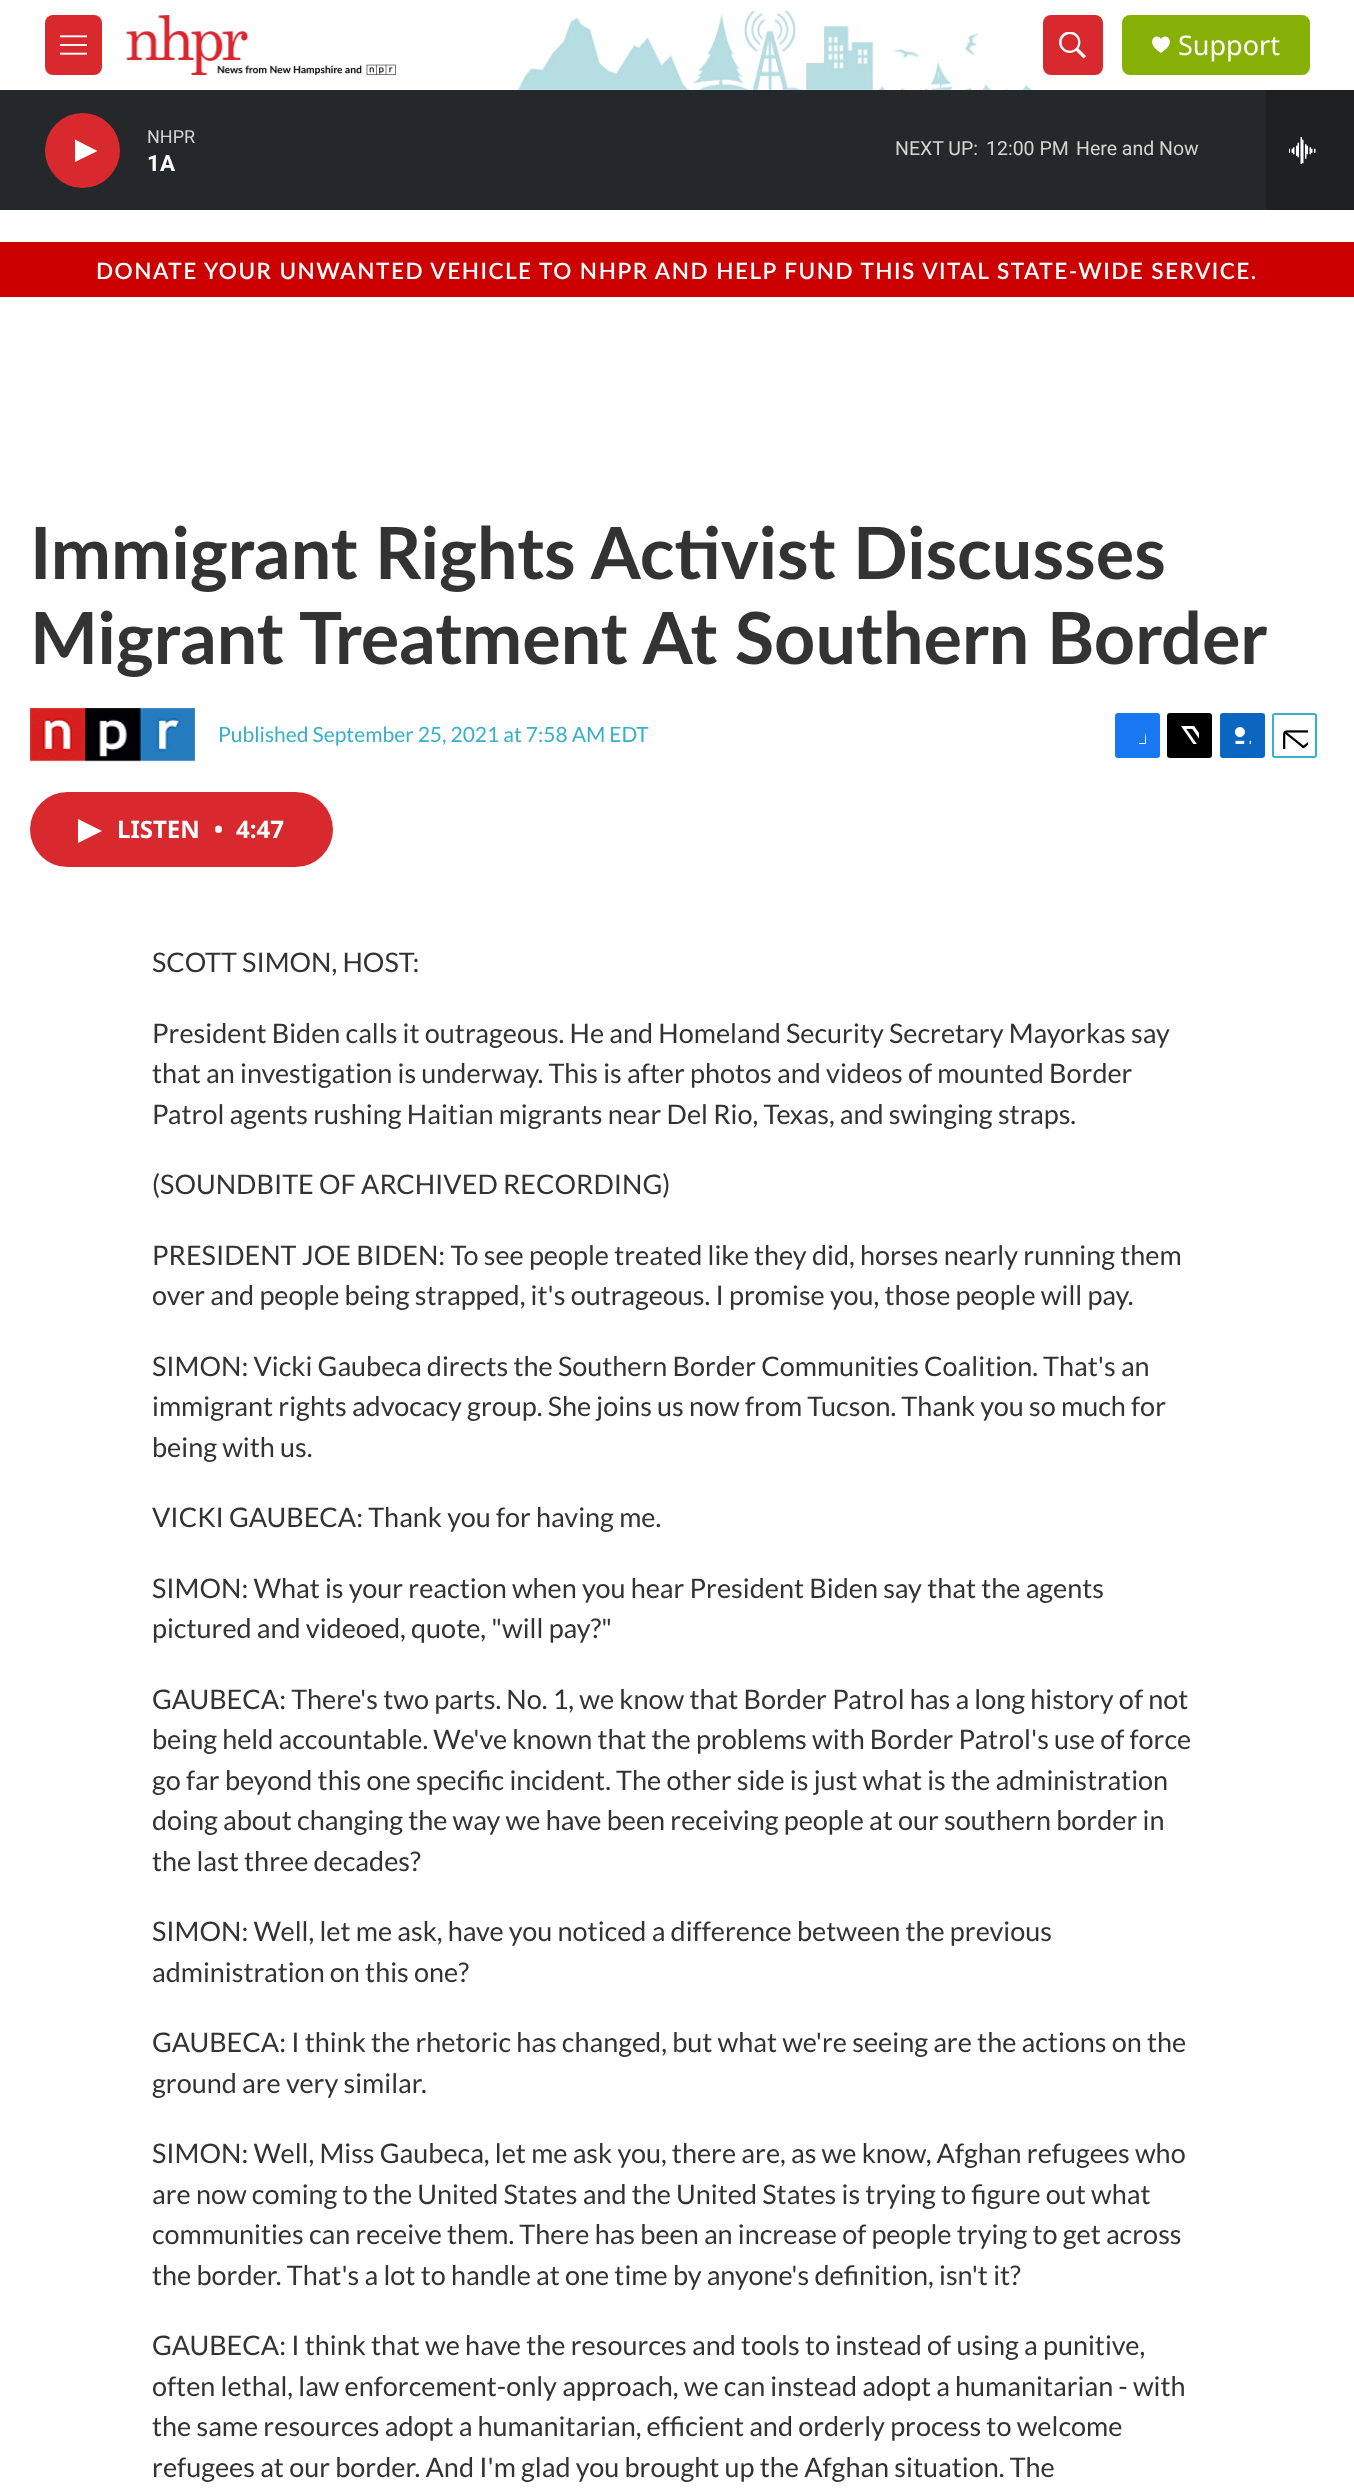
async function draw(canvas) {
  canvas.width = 1354
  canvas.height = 2490
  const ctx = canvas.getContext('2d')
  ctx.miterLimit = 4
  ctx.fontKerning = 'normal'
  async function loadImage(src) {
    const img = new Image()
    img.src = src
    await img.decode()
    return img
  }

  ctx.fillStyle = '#fff'
  ctx.fillRect(0, 0, 1354, 2490)
  ctx.drawImage(await loadImage('image0.png'), 517, 10, 516, 80)
  ctx.fillStyle = '#d8292f'
  ctx.beginPath()
  ctx.roundRect(45, 15, 57, 60, 8)
  ctx.fill()
  ctx.drawImage(await loadImage('image1.png'), 60, 35, 27, 20)
  ctx.drawImage(await loadImage('image2.png'), 126, 15, 270, 60)
  ctx.beginPath()
  ctx.roundRect(1043, 15, 60, 60, 8)
  ctx.fill()
  ctx.drawImage(await loadImage('image3.png'), 1059, 32, 27, 27)
  ctx.fillStyle = '#87b006'
  ctx.beginPath()
  ctx.roundRect(1122, 15, 188, 60, 8)
  ctx.fill()
  ctx.fillStyle = '#fff'
  ctx.beginPath()
  ctx.moveTo(1161, 39.5)
  ctx.bezierCurveTo(1158, 31.5, 1142.5, 41.5, 1161, 53)
  ctx.bezierCurveTo(1179.5, 41.5, 1164, 31.5, 1161, 39.5)
  ctx.closePath()
  ctx.fill()
  ctx.font = '27px Noto Sans'
  ctx.fillText('Support', 1178, 55)
  ctx.fillStyle = '#25282a'
  ctx.fillRect(0, 90, 1266, 120)
  ctx.fillStyle = '#d8292f'
  ctx.beginPath()
  ctx.arc(82.5, 150.5, 37.5, 0, 2 * Math.PI)
  ctx.fill()
  ctx.fillStyle = '#fff'
  ctx.beginPath()
  ctx.moveTo(75, 139.5)
  ctx.lineTo(97.5, 151)
  ctx.lineTo(75, 162)
  ctx.closePath()
  ctx.fill()
  ctx.font = '18px Roboto'
  ctx.fillStyle = '#d3d4d4'
  ctx.fillText('NHPR', 147, 143)
  ctx.font = 'bold 22.5px Roboto'
  ctx.fillStyle = '#fff'
  ctx.fillText('1A', 147, 171)
  ctx.font = '19.5px Roboto'
  ctx.fillStyle = '#d3d4d4'
  ctx.fillText('NEXT UP:', 895, 155)
  ctx.fillText('12:00 PM', 986, 155)
  ctx.fillText('Here and Now', 1076, 155)
  ctx.fillStyle = '#1e2022'
  ctx.fillRect(1266, 90, 88, 120)
  ctx.drawImage(await loadImage('image4.png'), 1289, 137, 27, 27)
  ctx.fillStyle = '#c00'
  ctx.fillRect(0, 242, 1354, 55)
  ctx.letterSpacing = '1.5px'
  ctx.font = '600 22.5px Lato'
  ctx.fillStyle = '#fff'
  ctx.fillText('DONATE YOUR UNWANTED VEHICLE TO NHPR AND HELP FUND THIS VITAL STATE-WIDE SERVICE.', 96, 279)
  ctx.letterSpacing = '0px'
  ctx.font = 'bold 72px Lato'
  ctx.fillStyle = '#333'
  ctx.fillText('Immigrant Rights Activist Discusses', 30, 579)
  ctx.fillText('Migrant Treatment At Southern Border', 30, 664)
  ctx.drawImage(await loadImage('image5.png'), 30, 708, 165, 54)
  ctx.font = '21px Lato'
  ctx.fillStyle = '#37b0c9'
  ctx.fillText('Published September 25, 2021 at 7:58 AM EDT', 218, 742)
  ctx.fillStyle = '#1778f2'
  ctx.beginPath()
  ctx.roundRect(1115, 713, 45, 45, 3)
  ctx.fill()
  ctx.save()
  ctx.beginPath()
  ctx.rect(1128, 726, 18, 18)
  ctx.clip()
  ctx.fillStyle = '#fff'
  ctx.beginPath()
  ctx.moveTo(1153, 758)
  ctx.lineTo(1145, 758)
  ctx.lineTo(1145, 750)
  ctx.lineTo(1139, 750)
  ctx.lineTo(1139, 743)
  ctx.lineTo(1145, 743)
  ctx.bezierCurveTo(1145, 730.5, 1147, 725, 1160, 727)
  ctx.lineTo(1160, 734)
  ctx.bezierCurveTo(1151.5, 734, 1153, 735.5, 1153, 743)
  ctx.lineTo(1160, 743)
  ctx.lineTo(1159, 750)
  ctx.lineTo(1153, 750)
  ctx.closePath()
  ctx.fill()
  ctx.restore()
  ctx.fillStyle = '#000'
  ctx.beginPath()
  ctx.roundRect(1167, 713, 45, 45, 3)
  ctx.fill()
  ctx.drawImage(await loadImage('image6.png'), 1181, 726, 18, 18)
  ctx.fillStyle = '#0a66c1'
  ctx.beginPath()
  ctx.roundRect(1220, 713, 45, 45, 3)
  ctx.fill()
  ctx.drawImage(await loadImage('image7.png'), 1234, 727, 17, 17)
  ctx.beginPath()
  ctx.roundRect(1273, 714, 43, 43, 2)
  ctx.strokeStyle = '#37b0c9'
  ctx.lineWidth = 2
  ctx.stroke()
  ctx.drawImage(await loadImage('image8.png'), 1283, 730, 25, 19)
  ctx.fillStyle = '#d8292f'
  ctx.beginPath()
  ctx.roundRect(30, 792, 303, 75, 37.5)
  ctx.fill()
  ctx.fillStyle = '#fff'
  ctx.beginPath()
  ctx.moveTo(78, 819)
  ctx.lineTo(102, 831)
  ctx.lineTo(78, 843)
  ctx.closePath()
  ctx.fill()
  ctx.font = 'bold 24px Noto Sans'
  ctx.fillText('LISTEN', 117, 838)
  ctx.fillText('•', 214, 838)
  ctx.fillText('4:47', 236, 838)
  ctx.font = '27px Lato'
  ctx.fillStyle = '#333'
  ctx.fillText('SCOTT SIMON, HOST:', 152, 972)
  ctx.fillText('President Biden calls it outrageous. He and Homeland Security Secretary Mayorkas say', 152, 1043)
  ctx.fillText('that an investigation is underway. This is after photos and videos of mounted Border', 152, 1083)
  ctx.fillText('Patrol agents rushing Haitian migrants near Del Rio, Texas, and swinging straps.', 152, 1124)
  ctx.fillText('(SOUNDBITE OF ARCHIVED RECORDING)', 152, 1194)
  ctx.fillText('PRESIDENT JOE BIDEN: To see people treated like they did, horses nearly running them', 152, 1265)
  ctx.fillText('over and people being strapped, it\'s outrageous. I promise you, those people will pay.', 152, 1305)
  ctx.fillText('SIMON: Vicki Gaubeca directs the Southern Border Communities Coalition. That\'s an', 152, 1376)
  ctx.fillText('immigrant rights advocacy group. She joins us now from Tucson. Thank you so much for', 152, 1416)
  ctx.fillText('being with us.', 152, 1457)
  ctx.fillText('VICKI GAUBECA: Thank you for having me.', 152, 1527)
  ctx.fillText('SIMON: What is your reaction when you hear President Biden say that the agents', 152, 1598)
  ctx.fillText('pictured and videoed, quote, "will pay?"', 152, 1638)
  ctx.fillText('GAUBECA: There\'s two parts. No. 1, we know that Border Patrol has a long history of not', 152, 1709)
  ctx.fillText('being held accountable. We\'ve known that the problems with Border Patrol\'s use of force', 152, 1749)
  ctx.fillText('go far beyond this one specific incident. The other side is just what is the administration', 152, 1790)
  ctx.fillText('doing about changing the way we have been receiving people at our southern border in', 152, 1830)
  ctx.fillText('the last three decades?', 152, 1871)
  ctx.fillText('SIMON: Well, let me ask, have you noticed a difference between the previous', 152, 1941)
  ctx.fillText('administration on this one?', 152, 1982)
  ctx.fillText('GAUBECA: I think the rhetoric has changed, but what we\'re seeing are the actions on the', 152, 2052)
  ctx.fillText('ground are very similar.', 152, 2093)
  ctx.fillText('SIMON: Well, Miss Gaubeca, let me ask you, there are, as we know, Afghan refugees who', 152, 2163)
  ctx.fillText('are now coming to the United States and the United States is trying to figure out what', 152, 2204)
  ctx.fillText('communities can receive them. There has been an increase of people trying to get across', 152, 2244)
  ctx.fillText('the border. That\'s a lot to handle at one time by anyone\'s definition, isn\'t it?', 152, 2285)
  ctx.fillText('GAUBECA: I think that we have the resources and tools to instead of using a punitive,', 152, 2355)
  ctx.fillText('often lethal, law enforcement-only approach, we can instead adopt a humanitarian - with', 152, 2396)
  ctx.fillText('the same resources adopt a humanitarian, efficient and orderly process to welcome', 152, 2436)
  ctx.fillText('refugees at our border. And I\'m glad you brought up the Afghan situation. The', 152, 2477)
}

draw(document.querySelector('canvas'))
